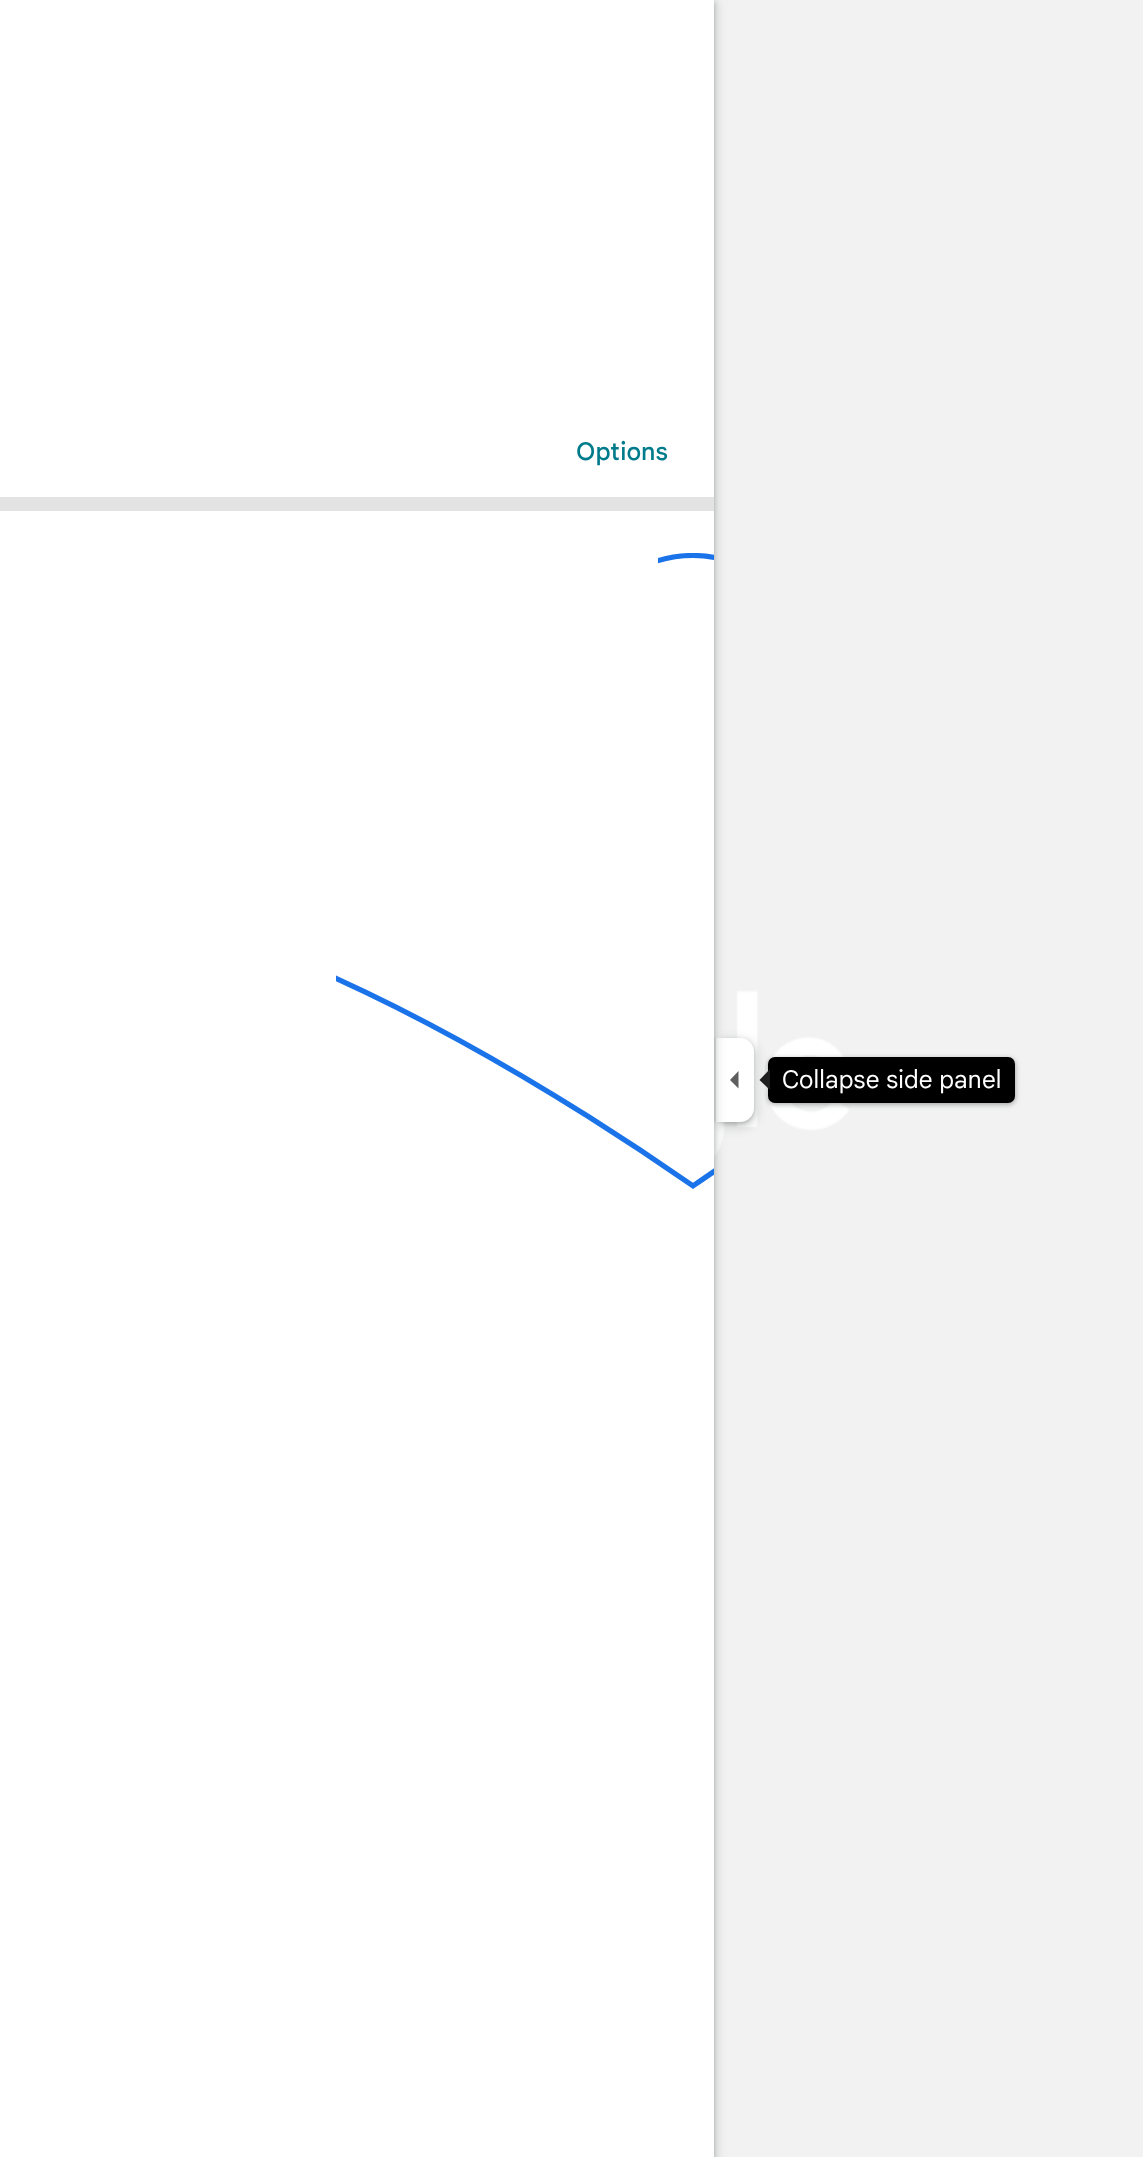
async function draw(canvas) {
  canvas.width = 1143
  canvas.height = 2157
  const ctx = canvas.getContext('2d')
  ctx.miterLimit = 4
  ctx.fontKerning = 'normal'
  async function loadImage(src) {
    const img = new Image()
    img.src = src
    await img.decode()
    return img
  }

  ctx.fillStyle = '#f2f2f2'
  ctx.fillRect(0, 0, 1143, 2157)
  ctx.drawImage(await loadImage('image0.png'), 714, 990, 136, 169)
  ctx.fillStyle = '#3c404326'
  ctx.filter = 'blur(5px)'
  ctx.beginPath()
  ctx.roundRect(711, 1038, 47, 91, 18)
  ctx.fill()
  ctx.filter = 'none'
  ctx.fillStyle = '#3c40434d'
  ctx.filter = 'blur(2px)'
  ctx.beginPath()
  ctx.roundRect(714, 1040, 40, 84, 14)
  ctx.fill()
  ctx.filter = 'none'
  ctx.fillStyle = '#fff'
  ctx.beginPath()
  ctx.roundRect(714, 1038, 40, 84, [0, 14, 14, 0])
  ctx.fill()
  ctx.fillStyle = '#e3e3e3'
  ctx.fillRect(714, 1038, 2, 84)
  ctx.fillStyle = '#5e5e5e'
  ctx.beginPath()
  ctx.moveTo(738.5, 1088.5)
  ctx.lineTo(730, 1080)
  ctx.lineTo(738.5, 1071)
  ctx.closePath()
  ctx.fill()
  ctx.fillStyle = '#3c404326'
  ctx.filter = 'blur(5px)'
  ctx.beginPath()
  ctx.rect(-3, 0, 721, 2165)
  ctx.fill()
  ctx.filter = 'none'
  ctx.fillStyle = '#3c40434d'
  ctx.filter = 'blur(2px)'
  ctx.beginPath()
  ctx.rect(0, 2, 714, 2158)
  ctx.fill()
  ctx.filter = 'none'
  ctx.fillStyle = '#fff'
  ctx.fillRect(0, 0, 714, 2157)
  ctx.fillStyle = '#e3e3e3'
  ctx.fillRect(0, 497, 714, 14)
  ctx.letterSpacing = '0.2px'
  ctx.font = '500 24.5px Google Sans'
  ctx.fillStyle = '#007b8b'
  ctx.fillText('Options', 576, 460)
  ctx.save()
  ctx.beginPath()
  ctx.rect(658, 553, 56, 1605)
  ctx.clip()
  ctx.beginPath()
  ctx.moveTo(442.5, 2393)
  ctx.bezierCurveTo(376, 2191, 338.5, 1917.5, 338.5, 1632)
  ctx.bezierCurveTo(338.5, 1346.5, 376, 1072.5, 442.5, 871)
  ctx.bezierCurveTo(509, 669, 599, 555.5, 693, 555.5)
  ctx.bezierCurveTo(787, 555.5, 877, 669, 943.5, 871)
  ctx.bezierCurveTo(1010, 1072.5, 1047.5, 1346.5, 1047.5, 1632)
  ctx.bezierCurveTo(1047.5, 1917.5, 1010, 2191, 943.5, 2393)
  ctx.strokeStyle = '#1a73e8'
  ctx.lineWidth = 5.2
  ctx.stroke()
  ctx.restore()
  ctx.save()
  ctx.beginPath()
  ctx.rect(336, 553, 357, 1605)
  ctx.clip()
  ctx.beginPath()
  ctx.moveTo(271, 950.5)
  ctx.bezierCurveTo(468.5, 1029.5, 702, 1177, 921, 1360.5)
  ctx.bezierCurveTo(1139.5, 1544, 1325, 1748.5, 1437, 1929)
  ctx.bezierCurveTo(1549, 2109.5, 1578, 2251.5, 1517.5, 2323.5)
  ctx.bezierCurveTo(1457, 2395.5, 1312, 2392, 1115, 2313)
  ctx.strokeStyle = '#1a73e8'
  ctx.lineWidth = 5.2
  ctx.stroke()
  ctx.restore()
  ctx.save()
  ctx.beginPath()
  ctx.rect(693, 553, 21, 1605)
  ctx.clip()
  ctx.beginPath()
  ctx.moveTo(271, 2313)
  ctx.bezierCurveTo(74, 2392, -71, 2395.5, -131.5, 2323.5)
  ctx.bezierCurveTo(-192, 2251.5, -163, 2109.5, -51, 1929)
  ctx.bezierCurveTo(61, 1748.5, 246.5, 1544, 465, 1360.5)
  ctx.bezierCurveTo(684, 1177, 917.5, 1029.5, 1115, 950.5)
  ctx.strokeStyle = '#1a73e8'
  ctx.lineWidth = 5.2
  ctx.stroke()
  ctx.restore()
  ctx.fillStyle = '#3c404326'
  ctx.filter = 'blur(2.5px)'
  ctx.beginPath()
  ctx.roundRect(767, 1057, 250, 49, 9)
  ctx.fill()
  ctx.filter = 'none'
  ctx.fillStyle = '#3c40434d'
  ctx.filter = 'blur(2px)'
  ctx.beginPath()
  ctx.roundRect(768, 1059, 247, 45, 7)
  ctx.fill()
  ctx.filter = 'none'
  ctx.fillStyle = '#000'
  ctx.beginPath()
  ctx.roundRect(768, 1057, 247, 46, 7)
  ctx.fill()
  ctx.fillStyle = '#1f1f1f'
  ctx.beginPath()
  ctx.moveTo(770, 1069)
  ctx.lineTo(770, 1090)
  ctx.lineTo(759.5, 1080)
  ctx.closePath()
  ctx.fill()
  ctx.font = '24.5px Google Sans'
  ctx.fillStyle = '#fff'
  ctx.fillText('Collapse side panel', 782, 1088)
}

draw(document.querySelector('canvas'))
